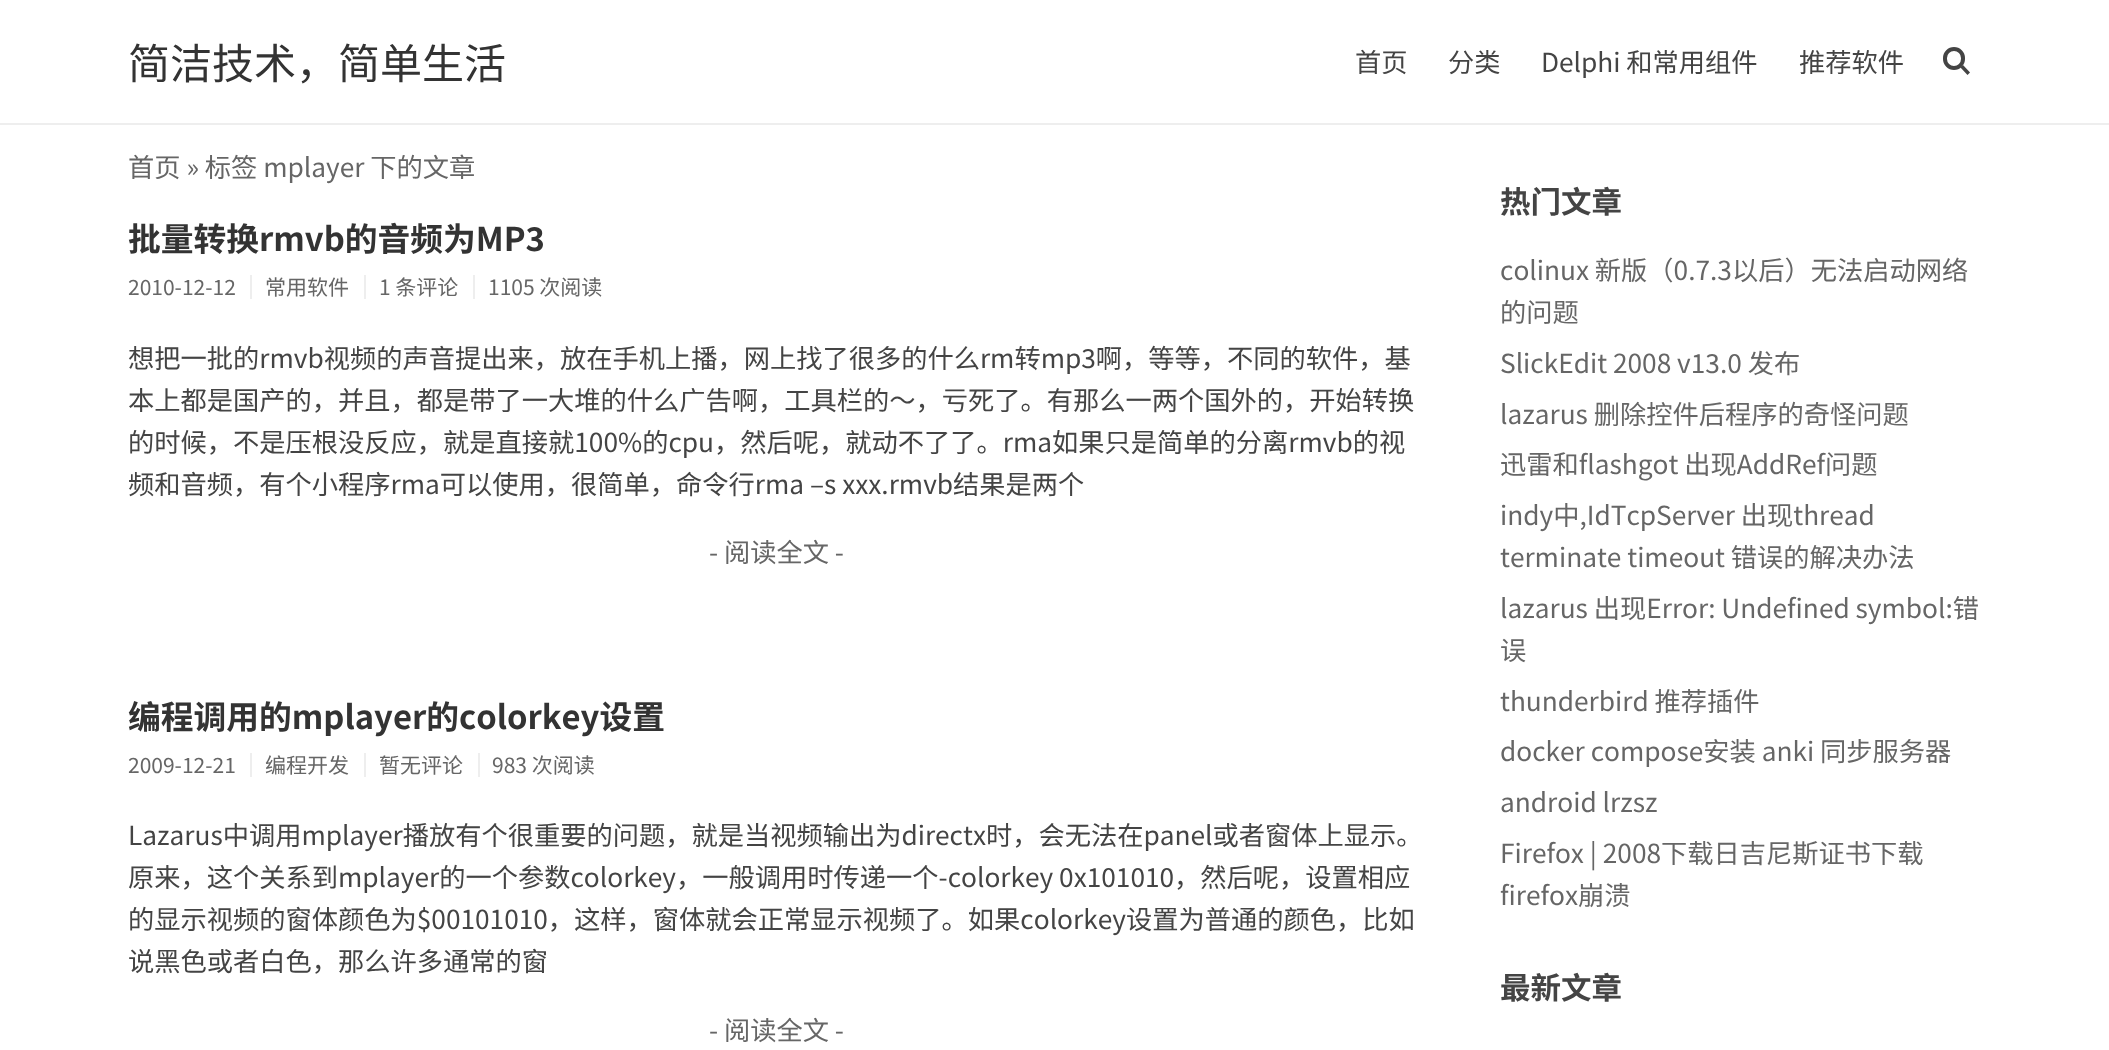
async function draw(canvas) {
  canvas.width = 2109
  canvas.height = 1050
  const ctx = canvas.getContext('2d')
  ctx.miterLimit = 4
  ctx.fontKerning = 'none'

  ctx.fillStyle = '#fff'
  ctx.fillRect(0, 0, 2109, 1050)
  ctx.fillStyle = '#eee'
  ctx.fillRect(0, 123, 2109, 2)
  ctx.font = '42px Noto Sans CJK SC'
  ctx.fillStyle = '#333'
  ctx.fillText('简洁技术，简单生活', 128, 79)
  ctx.font = '26.25px Noto Sans CJK SC'
  ctx.fillStyle = '#444'
  ctx.fillText('首页', 1355, 72)
  ctx.fillText('分类', 1448, 72)
  ctx.fillText('Delphi 和常用组件', 1541, 72)
  ctx.fillText('推荐软件', 1799, 72)
  ctx.beginPath()
  ctx.roundRect(1945, 49, 18, 19, 9)
  ctx.strokeStyle = '#444'
  ctx.lineWidth = 4
  ctx.stroke()
  ctx.beginPath()
  ctx.moveTo(1963, 65)
  ctx.lineTo(1970, 72.5)
  ctx.lineTo(1967.5, 75)
  ctx.lineTo(1960.5, 67.5)
  ctx.closePath()
  ctx.fill()
  ctx.fillStyle = '#666'
  ctx.fillText('首页 » 标签 mplayer 下的文章', 128, 177)
  ctx.font = 'bold 32.75px Noto Sans CJK SC'
  ctx.fillStyle = '#333'
  ctx.fillText('批量转换rmvb的音频为MP3', 128, 251)
  ctx.font = '21px Noto Sans CJK SC'
  ctx.fillStyle = '#666'
  ctx.fillText('2010-12-12', 128, 295)
  ctx.fillStyle = '#eee'
  ctx.fillRect(250, 275, 2, 24)
  ctx.fillStyle = '#666'
  ctx.fillText('常用软件', 265, 295)
  ctx.fillStyle = '#eee'
  ctx.fillRect(364, 275, 2, 24)
  ctx.fillStyle = '#666'
  ctx.fillText('1 条评论', 379, 295)
  ctx.fillStyle = '#eee'
  ctx.fillRect(473, 275, 2, 24)
  ctx.fillStyle = '#666'
  ctx.fillText('1105 次阅读', 488, 295)
  ctx.font = '26.25px Noto Sans CJK SC'
  ctx.fillStyle = '#444'
  ctx.fillText('想把一批的rmvb视频的声音提出来，放在手机上播，网上找了很多的什么rm转mp3啊，等等，不同的软件，基', 128, 368)
  ctx.fillText('本上都是国产的，并且，都是带了一大堆的什么广告啊，工具栏的～，亏死了。有那么一两个国外的，开始转换', 128, 410)
  ctx.fillText('的时候，不是压根没反应，就是直接就100%的cpu，然后呢，就动不了了。rma如果只是简单的分离rmvb的视', 128, 452)
  ctx.fillText('频和音频，有个小程序rma可以使用，很简单，命令行rma –s xxx.rmvb结果是两个', 128, 494)
  ctx.fillStyle = '#666'
  ctx.fillText('- 阅读全文 -', 709, 562)
  ctx.font = 'bold 32.75px Noto Sans CJK SC'
  ctx.fillStyle = '#333'
  ctx.fillText('编程调用的mplayer的colorkey设置', 128, 729)
  ctx.font = '21px Noto Sans CJK SC'
  ctx.fillStyle = '#666'
  ctx.fillText('2009-12-21', 128, 773)
  ctx.fillStyle = '#eee'
  ctx.fillRect(250, 753, 2, 24)
  ctx.fillStyle = '#666'
  ctx.fillText('编程开发', 265, 773)
  ctx.fillStyle = '#eee'
  ctx.fillRect(364, 753, 2, 24)
  ctx.fillStyle = '#666'
  ctx.fillText('暂无评论', 379, 773)
  ctx.fillStyle = '#eee'
  ctx.fillRect(478, 753, 2, 24)
  ctx.fillStyle = '#666'
  ctx.fillText('983 次阅读', 492, 773)
  ctx.font = '26.25px Noto Sans CJK SC'
  ctx.fillStyle = '#444'
  ctx.fillText('Lazarus中调用mplayer播放有个很重要的问题，就是当视频输出为directx时，会无法在panel或者窗体上显示。', 128, 845)
  ctx.fillText('原来，这个关系到mplayer的一个参数colorkey，一般调用时传递一个-colorkey 0x101010，然后呢，设置相应', 128, 887)
  ctx.fillText('的显示视频的窗体颜色为$00101010，这样，窗体就会正常显示视频了。如果colorkey设置为普通的颜色，比如', 128, 929)
  ctx.fillText('说黑色或者白色，那么许多通常的窗', 128, 971)
  ctx.fillStyle = '#666'
  ctx.fillText('- 阅读全文 -', 709, 1040)
  ctx.font = 'bold 30.5px Noto Sans CJK SC'
  ctx.fillStyle = '#444'
  ctx.fillText('热门文章', 1500, 213)
  ctx.font = '26.25px Noto Sans CJK SC'
  ctx.fillStyle = '#666'
  ctx.fillText('colinux 新版（0.7.3以后）无法启动网络', 1500, 280)
  ctx.fillText('的问题', 1500, 322)
  ctx.fillText('SlickEdit 2008 v13.0 发布', 1500, 373)
  ctx.fillText('lazarus 删除控件后程序的奇怪问题', 1500, 424)
  ctx.fillText('迅雷和flashgot 出现AddRef问题', 1500, 474)
  ctx.fillText('indy中,IdTcpServer 出现thread', 1500, 525)
  ctx.fillText('terminate timeout 错误的解决办法', 1500, 567)
  ctx.fillText('lazarus 出现Error: Undefined symbol:错', 1500, 618)
  ctx.fillText('误', 1500, 660)
  ctx.fillText('thunderbird 推荐插件', 1500, 711)
  ctx.fillText('docker compose安装 anki 同步服务器', 1500, 761)
  ctx.fillText('android lrzsz', 1500, 812)
  ctx.fillText('Firefox | 2008下载日吉尼斯证书下载', 1500, 863)
  ctx.fillText('firefox崩溃', 1500, 905)
  ctx.font = 'bold 30.5px Noto Sans CJK SC'
  ctx.fillStyle = '#444'
  ctx.fillText('最新文章', 1500, 999)
}

draw(document.querySelector('canvas'))
